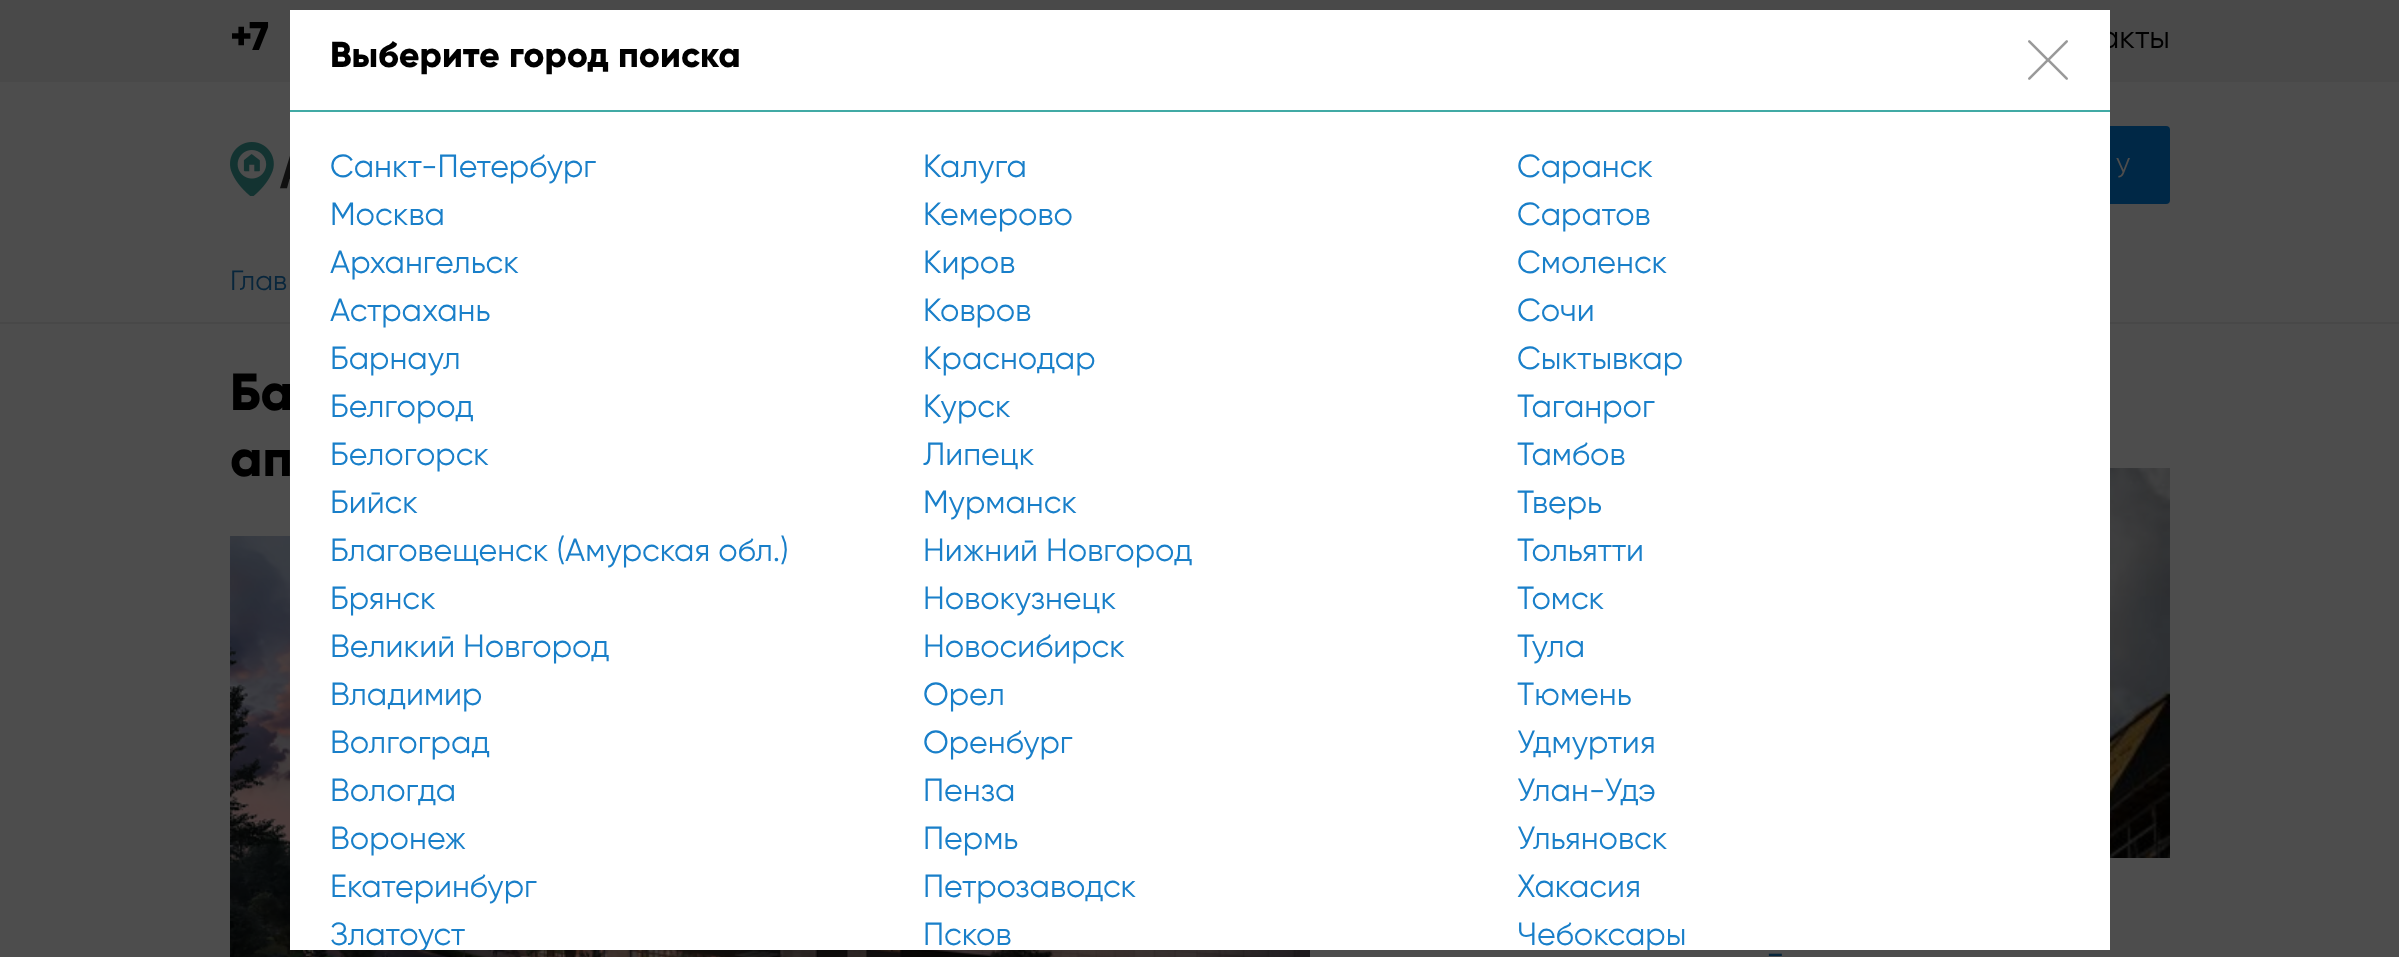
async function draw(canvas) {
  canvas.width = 2399
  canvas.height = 957
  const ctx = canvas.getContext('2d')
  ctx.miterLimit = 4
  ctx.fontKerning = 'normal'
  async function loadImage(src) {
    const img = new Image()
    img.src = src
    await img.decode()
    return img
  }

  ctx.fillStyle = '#4d4d4d'
  ctx.fillRect(0, 0, 2399, 957)
  ctx.fillStyle = '#494949'
  ctx.fillRect(0, 0, 2399, 82)
  ctx.font = '800 40px Gilroy'
  ctx.fillStyle = '#000'
  ctx.fillText('+7', 230, 50)
  ctx.font = '32px Gilroy'
  ctx.fillText('акты', 2099, 48)
  ctx.drawImage(await loadImage('image0.png'), 230, 142, 60, 54)
  ctx.fillStyle = '#002846'
  ctx.beginPath()
  ctx.roundRect(1852, 126, 318, 78, 4)
  ctx.fill()
  ctx.font = '28px Gilroy'
  ctx.fillStyle = '#4d4d4d'
  ctx.fillText('у', 2116, 172)
  ctx.fillStyle = '#484848'
  ctx.fillRect(0, 322, 2399, 2)
  ctx.fillStyle = '#08263c'
  ctx.fillText('Глав', 230, 290)
  ctx.font = '800 52px Gilroy'
  ctx.fillStyle = '#000'
  ctx.fillText('Ба', 230, 410)
  ctx.fillText('ап', 230, 476)
  ctx.drawImage(await loadImage('image1.png'), 230, 536, 1080, 421)
  ctx.drawImage(await loadImage('image2.png'), 2110, 468, 60, 390)
  ctx.font = '36px Gilroy'
  ctx.fillStyle = '#08263c'
  ctx.fillText('-', 1766, 966)
  ctx.fillStyle = '#fff'
  ctx.fillRect(290, 10, 1820, 940)
  ctx.fillStyle = '#41aaa5'
  ctx.fillRect(290, 110, 1820, 2)
  ctx.font = '800 36px Gilroy'
  ctx.fillStyle = '#000'
  ctx.fillText('Выберите город поиска', 330, 67)
  ctx.drawImage(await loadImage('image3.png'), 2028, 40, 40, 40)
  ctx.font = '32px Gilroy'
  ctx.fillStyle = '#197fc9'
  ctx.fillText('Санкт-Петербург', 330, 177)
  ctx.fillText('Калуга', 923, 177)
  ctx.fillText('Саранск', 1517, 177)
  ctx.fillText('Москва', 330, 225)
  ctx.fillText('Кемерово', 923, 225)
  ctx.fillText('Саратов', 1517, 225)
  ctx.fillText('Архангельск', 330, 273)
  ctx.fillText('Киров', 923, 273)
  ctx.fillText('Смоленск', 1517, 273)
  ctx.fillText('Астрахань', 330, 321)
  ctx.fillText('Ковров', 923, 321)
  ctx.fillText('Сочи', 1517, 321)
  ctx.fillText('Барнаул', 330, 369)
  ctx.fillText('Краснодар', 923, 369)
  ctx.fillText('Сыктывкар', 1517, 369)
  ctx.fillText('Белгород', 330, 417)
  ctx.fillText('Курск', 923, 417)
  ctx.fillText('Таганрог', 1517, 417)
  ctx.fillText('Белогорск', 330, 465)
  ctx.fillText('Липецк', 923, 465)
  ctx.fillText('Тамбов', 1517, 465)
  ctx.fillText('Бийск', 330, 513)
  ctx.fillText('Мурманск', 923, 513)
  ctx.fillText('Тверь', 1517, 513)
  ctx.fillText('Благовещенск (Амурская обл.)', 330, 561)
  ctx.fillText('Нижний Новгород', 923, 561)
  ctx.fillText('Тольятти', 1517, 561)
  ctx.fillText('Брянск', 330, 609)
  ctx.fillText('Новокузнецк', 923, 609)
  ctx.fillText('Томск', 1517, 609)
  ctx.fillText('Великий Новгород', 330, 657)
  ctx.fillText('Новосибирск', 923, 657)
  ctx.fillText('Тула', 1517, 657)
  ctx.fillText('Владимир', 330, 705)
  ctx.fillText('Орел', 923, 705)
  ctx.fillText('Тюмень', 1517, 705)
  ctx.fillText('Волгоград', 330, 753)
  ctx.fillText('Оренбург', 923, 753)
  ctx.fillText('Удмуртия', 1517, 753)
  ctx.fillText('Вологда', 330, 801)
  ctx.fillText('Пенза', 923, 801)
  ctx.fillText('Улан-Удэ', 1517, 801)
  ctx.fillText('Воронеж', 330, 849)
  ctx.fillText('Пермь', 923, 849)
  ctx.fillText('Ульяновск', 1517, 849)
  ctx.fillText('Екатеринбург', 330, 897)
  ctx.fillText('Петрозаводск', 923, 897)
  ctx.fillText('Хакасия', 1517, 897)
  ctx.save()
  ctx.beginPath()
  ctx.rect(290, 112, 1820, 838)
  ctx.clip()
  ctx.fillText('Златоуст', 330, 945)
  ctx.restore()
  ctx.fillText('Псков', 923, 945)
  ctx.save()
  ctx.beginPath()
  ctx.rect(290, 112, 1820, 838)
  ctx.clip()
  ctx.fillText('Чебоксары', 1517, 945)
  ctx.restore()
}

draw(document.querySelector('canvas'))
